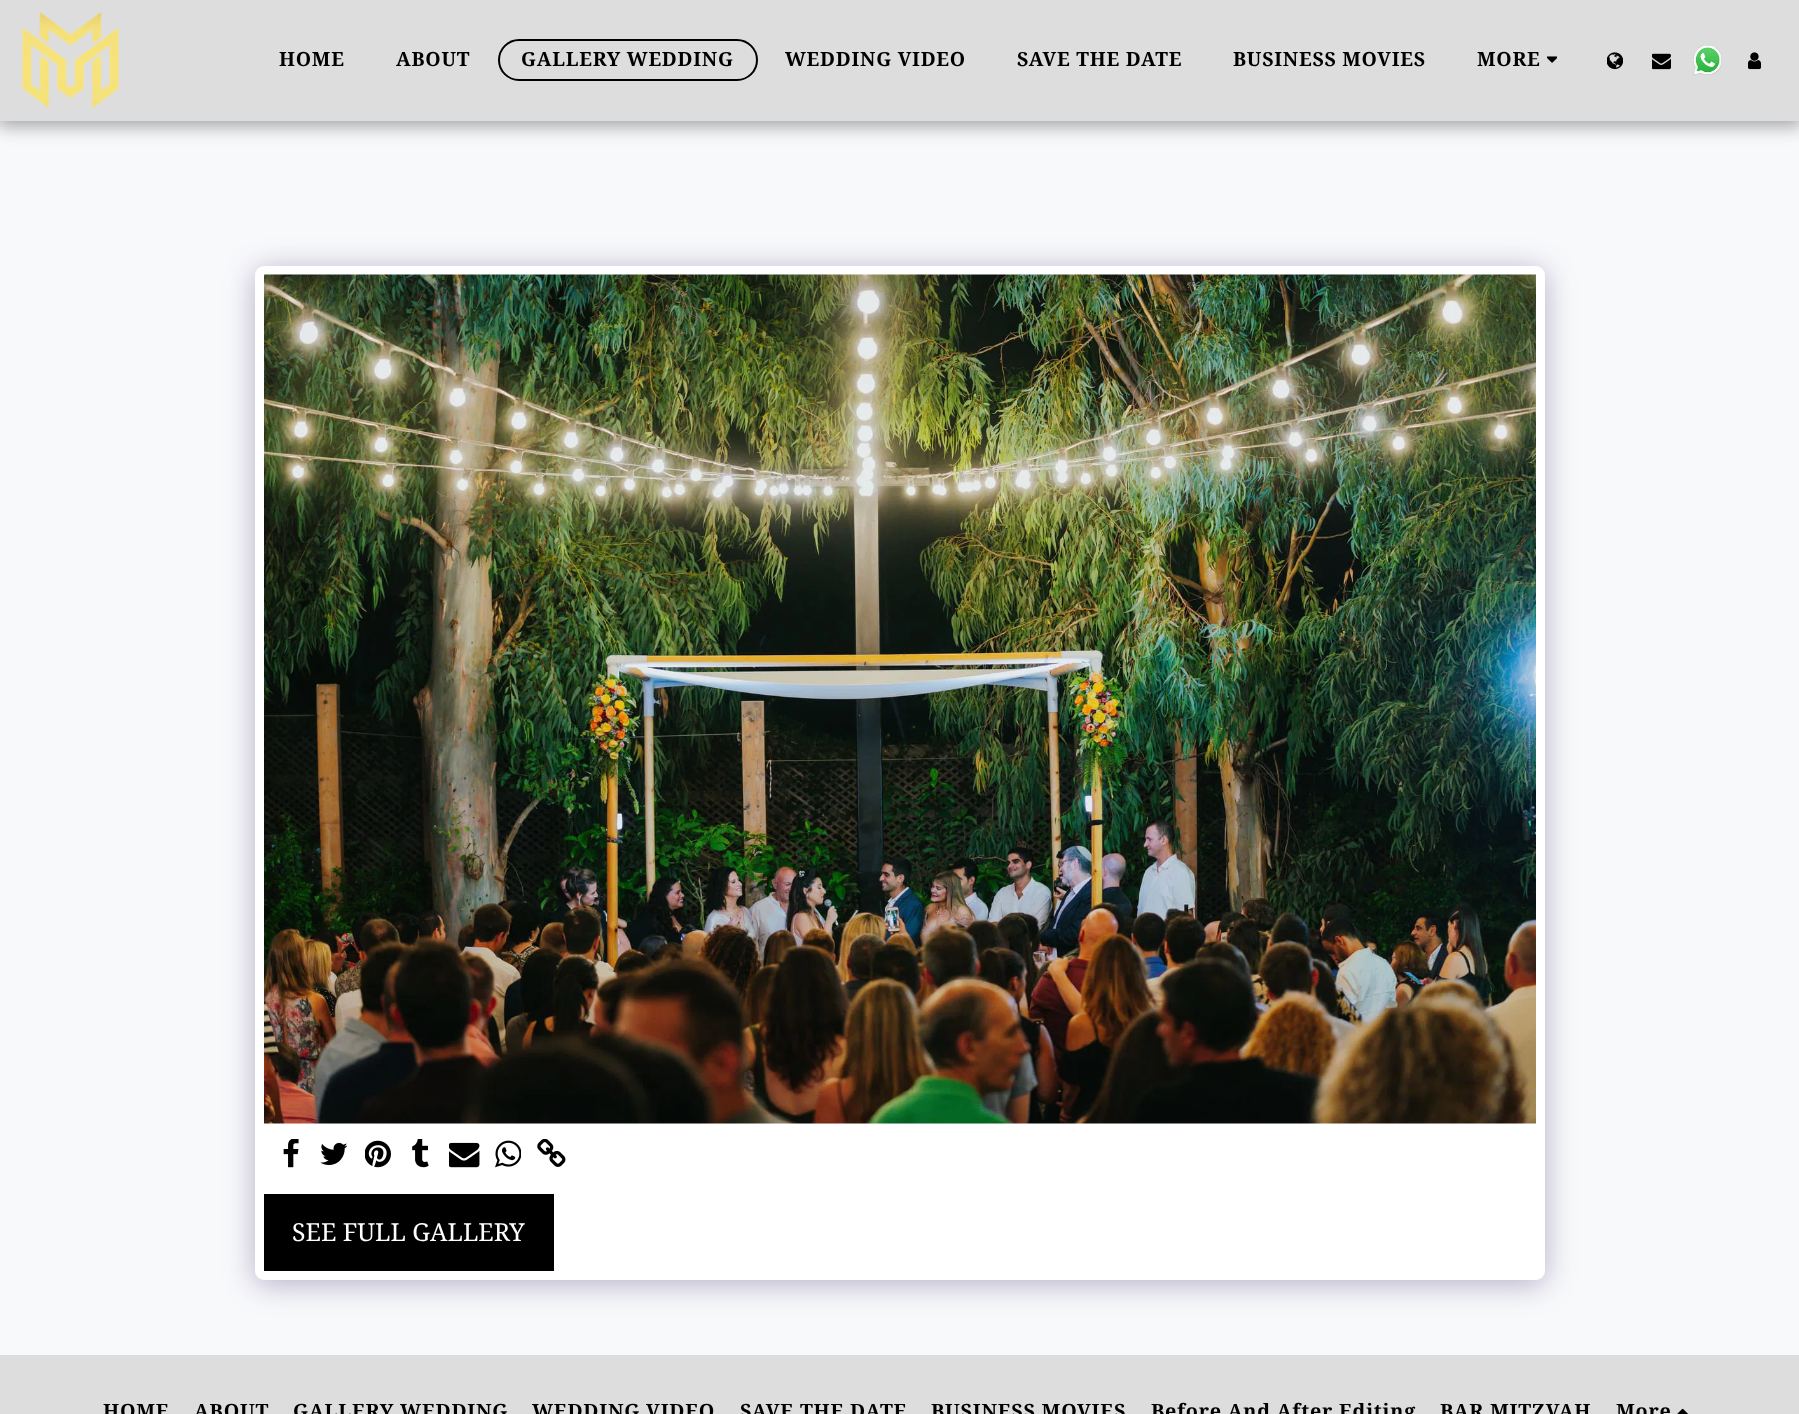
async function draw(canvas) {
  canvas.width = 1799
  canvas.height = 1414
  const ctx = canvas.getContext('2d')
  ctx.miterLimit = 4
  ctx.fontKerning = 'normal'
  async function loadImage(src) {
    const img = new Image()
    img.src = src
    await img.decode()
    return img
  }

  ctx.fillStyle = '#f8f9fb'
  ctx.fillRect(0, 0, 1799, 1414)
  ctx.fillStyle = '#00000059'
  ctx.filter = 'blur(9px)'
  ctx.beginPath()
  ctx.rect(-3, 0, 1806, 126)
  ctx.fill()
  ctx.filter = 'none'
  ctx.fillStyle = '#ddd'
  ctx.fillRect(0, 0, 1799, 121)
  ctx.drawImage(await loadImage('image0.png'), 22, 12, 97, 96)
  ctx.letterSpacing = '0.75px'
  ctx.font = 'bold 19.5px Noto Serif'
  ctx.fillStyle = '#000'
  ctx.fillText('HOME', 279, 66)
  ctx.fillText('ABOUT', 396, 66)
  ctx.beginPath()
  ctx.roundRect(499, 40, 258, 40, 20)
  ctx.strokeStyle = '#000'
  ctx.lineWidth = 2
  ctx.stroke()
  ctx.fillText('GALLERY WEDDING', 521, 66)
  ctx.fillText('WEDDING VIDEO', 785, 66)
  ctx.fillText('SAVE THE DATE', 1017, 66)
  ctx.fillText('BUSINESS MOVIES', 1233, 66)
  ctx.fillText('MORE', 1477, 66)
  ctx.drawImage(await loadImage('image1.png'), 1547, 56, 10, 7)
  ctx.drawImage(await loadImage('image2.png'), 1607, 52, 16, 18)
  ctx.drawImage(await loadImage('image3.png'), 1652, 53, 19, 17)
  ctx.drawImage(await loadImage('image4.png'), 1693, 45, 29, 30)
  ctx.drawImage(await loadImage('image5.png'), 1748, 52, 13, 18)
  ctx.fillStyle = '#4d3f7a66'
  ctx.filter = 'blur(15px)'
  ctx.beginPath()
  ctx.roundRect(255, 270, 1290, 1014, 9)
  ctx.fill()
  ctx.filter = 'none'
  ctx.fillStyle = '#fff'
  ctx.beginPath()
  ctx.roundRect(255, 266, 1290, 1014, 9)
  ctx.fill()
  ctx.drawImage(await loadImage('image6.png'), 264, 274, 1272, 850)
  ctx.drawImage(await loadImage('image7.png'), 283, 1139, 16, 29)
  ctx.drawImage(await loadImage('image8.png'), 320, 1142, 28, 23)
  ctx.drawImage(await loadImage('image9.png'), 365, 1140, 26, 28)
  ctx.drawImage(await loadImage('image10.png'), 412, 1139, 17, 29)
  ctx.drawImage(await loadImage('image11.png'), 449, 1142, 31, 26)
  ctx.drawImage(await loadImage('image12.png'), 495, 1140, 26, 28)
  ctx.drawImage(await loadImage('image13.png'), 537, 1139, 29, 28)
  ctx.fillStyle = '#000'
  ctx.fillRect(264, 1194, 290, 77)
  ctx.letterSpacing = '0px'
  ctx.font = '24.75px Noto Serif'
  ctx.fillStyle = '#fff'
  ctx.fillText('SEE FULL GALLERY', 292, 1241)
  ctx.fillStyle = '#ddd'
  ctx.fillRect(0, 1355, 1799, 59)
  ctx.letterSpacing = '0.75px'
  ctx.font = 'bold 19.75px Noto Serif'
  ctx.fillStyle = '#000'
  ctx.fillText('HOME', 103, 1418)
  ctx.fillText('ABOUT', 194, 1418)
  ctx.fillText('GALLERY WEDDING', 293, 1418)
  ctx.fillText('WEDDING VIDEO', 532, 1418)
  ctx.fillText('SAVE THE DATE', 740, 1418)
  ctx.fillText('BUSINESS MOVIES', 931, 1418)
  ctx.fillText('Before And After Editing', 1151, 1418)
  ctx.fillText('BAR MITZVAH', 1440, 1418)
  ctx.fillText('More', 1616, 1418)
  ctx.drawImage(await loadImage('image14.png'), 1677, 1408, 11, 6)
}

draw(document.querySelector('canvas'))
